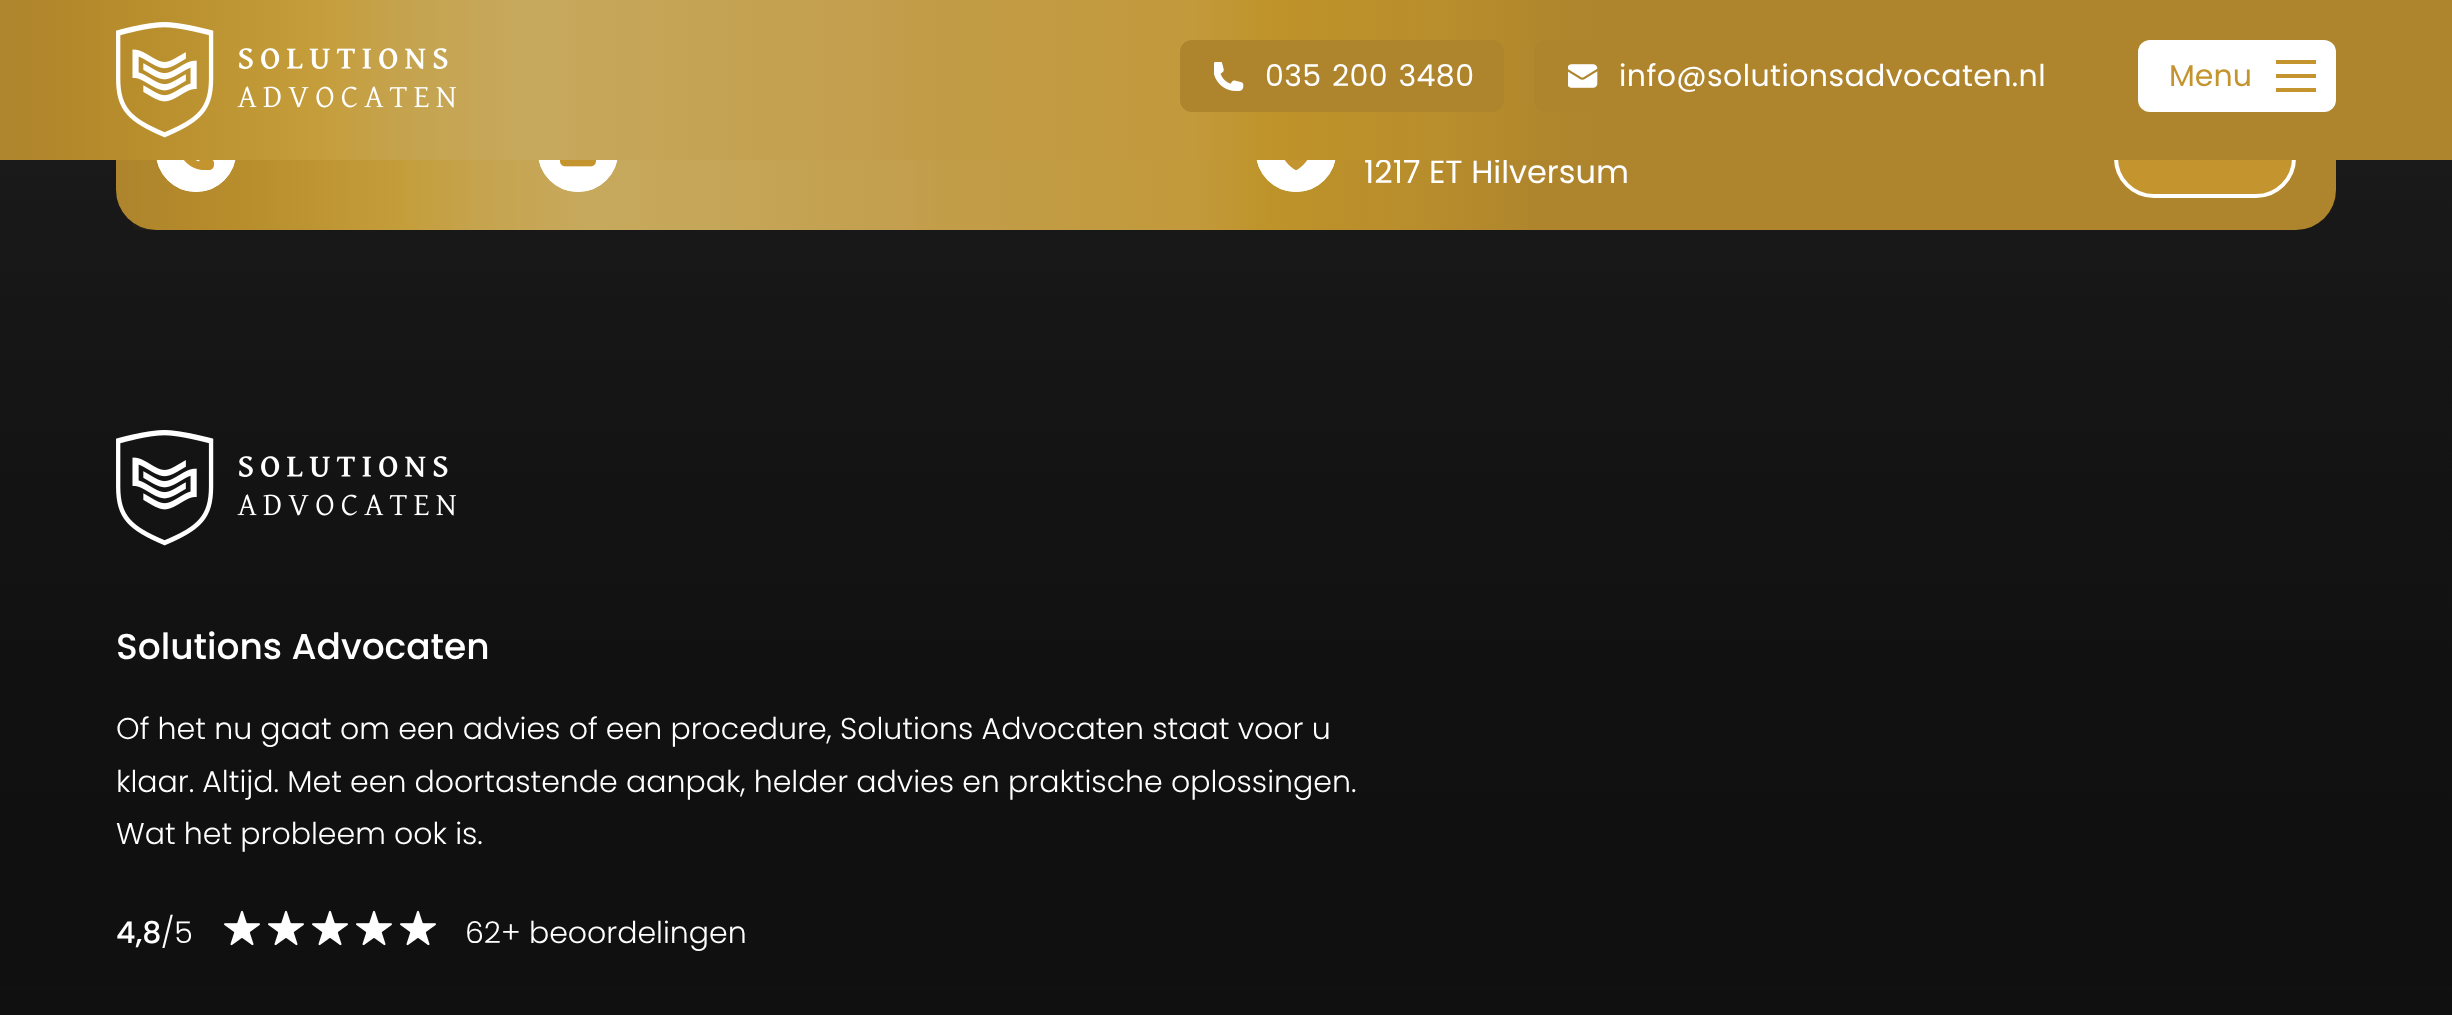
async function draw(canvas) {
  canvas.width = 2452
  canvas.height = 1015
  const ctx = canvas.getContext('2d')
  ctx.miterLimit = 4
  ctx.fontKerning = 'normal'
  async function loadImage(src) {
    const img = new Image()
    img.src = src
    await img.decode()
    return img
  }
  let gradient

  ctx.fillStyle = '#fff'
  ctx.fillRect(0, 0, 2452, 1015)
  gradient = ctx.createLinearGradient(1226, -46, 1226, 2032)
  gradient.addColorStop(0, '#1f1f1f')
  gradient.addColorStop(1, '#000')
  ctx.fillStyle = gradient
  ctx.fillRect(0, 160, 2452, 827)
  gradient = ctx.createLinearGradient(1226, -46, 1226, 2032)
  gradient.addColorStop(0, '#10101000')
  gradient.addColorStop(0.5, '#101010')
  gradient.addColorStop(1, '#000')
  ctx.fillStyle = gradient
  ctx.fillRect(0, 160, 2452, 855)
  ctx.fillStyle = '#ae842d'
  ctx.beginPath()
  ctx.roundRect(116, 74, 2220, 156, 40)
  ctx.fill()
  gradient = ctx.createLinearGradient(116, 152, 1560, 152)
  gradient.addColorStop(0, '#edbf1800')
  gradient.addColorStop(0.05, '#edbf1817')
  gradient.addColorStop(0.1, '#f0c8332b')
  gradient.addColorStop(0.2, '#f4d55a52')
  gradient.addColorStop(0.25, '#f8e69152')
  gradient.addColorStop(0.33, '#fcf8c652')
  gradient.addColorStop(0.4, '#f8efb452')
  gradient.addColorStop(0.55, '#eed79452')
  gradient.addColorStop(0.57, '#edd28452')
  gradient.addColorStop(0.75, '#ecc75852')
  gradient.addColorStop(0.8, '#ebbe2042')
  gradient.addColorStop(0.9, '#ebbb282b')
  gradient.addColorStop(1, '#ebbb2800')
  ctx.fillStyle = gradient
  ctx.fillRect(133, 160, 1396, 70)
  ctx.fillStyle = '#fff'
  ctx.beginPath()
  ctx.arc(196, 152, 38, 0, 2 * Math.PI)
  ctx.fill()
  ctx.strokeStyle = '#fff'
  ctx.lineWidth = 4
  ctx.stroke()
  ctx.beginPath()
  ctx.arc(196, 152, 38, 0, 2 * Math.PI)
  ctx.stroke()
  ctx.beginPath()
  ctx.arc(578, 152, 38, 0, 2 * Math.PI)
  ctx.fill()
  ctx.stroke()
  ctx.beginPath()
  ctx.arc(578, 152, 38, 0, 2 * Math.PI)
  ctx.stroke()
  ctx.beginPath()
  ctx.arc(1296, 152, 38, 0, 2 * Math.PI)
  ctx.fill()
  ctx.stroke()
  ctx.beginPath()
  ctx.arc(1296, 152, 38, 0, 2 * Math.PI)
  ctx.stroke()
  ctx.font = '32px Poppins'
  ctx.fillText('1217 ET Hilversum', 1364, 183)
  gradient = ctx.createLinearGradient(0, 80, 1594, 80)
  gradient.addColorStop(0, '#ae842d')
  gradient.addColorStop(0.05, '#b4892b')
  gradient.addColorStop(0.1, '#ba902e')
  gradient.addColorStop(0.2, '#c59d3b')
  gradient.addColorStop(0.25, '#c5a34d')
  gradient.addColorStop(0.33, '#c7a95e')
  gradient.addColorStop(0.4, '#c5a557')
  gradient.addColorStop(0.55, '#c39e4d')
  gradient.addColorStop(0.57, '#c29c48')
  gradient.addColorStop(0.75, '#c2993b')
  gradient.addColorStop(0.8, '#bf9329')
  gradient.addColorStop(0.9, '#b98e2c')
  gradient.addColorStop(1, '#ae842d')
  ctx.fillStyle = gradient
  ctx.fillRect(0, 0, 1594, 160)
  ctx.fillStyle = '#c4942f'
  ctx.beginPath()
  ctx.roundRect(2116, 108, 178, 88, 38)
  ctx.fill()
  ctx.strokeStyle = '#c4942f'
  ctx.stroke()
  ctx.beginPath()
  ctx.roundRect(2116, 108, 178, 88, 38)
  ctx.strokeStyle = '#fff'
  ctx.stroke()
  ctx.fillStyle = '#ae842d'
  ctx.fillRect(1594, 0, 858, 160)
  ctx.drawImage(await loadImage('image0.png'), 116, 22, 340, 116)
  ctx.beginPath()
  ctx.roundRect(1182, 42, 320, 68, 10)
  ctx.fill()
  ctx.strokeStyle = '#ae842d'
  ctx.stroke()
  ctx.drawImage(await loadImage('image1.png'), 1214, 62, 30, 29)
  ctx.letterSpacing = '0.4px'
  ctx.wordSpacing = '2px'
  ctx.font = '30px Poppins'
  ctx.fillStyle = '#fff'
  ctx.fillText('035 200 3480', 1265, 86)
  ctx.fillStyle = '#ae842d'
  ctx.beginPath()
  ctx.roundRect(1534, 40, 544, 72, 12)
  ctx.fill()
  ctx.drawImage(await loadImage('image2.png'), 1568, 64, 30, 24)
  ctx.wordSpacing = '0px'
  ctx.fillStyle = '#fff'
  ctx.fillText('info@solutionsadvocaten.nl', 1619, 86)
  ctx.beginPath()
  ctx.roundRect(2138, 40, 198, 72, 12)
  ctx.fill()
  ctx.letterSpacing = '0px'
  ctx.fillStyle = '#c4942f'
  ctx.fillText('Menu', 2169, 86)
  ctx.fillRect(2276, 60, 40, 4)
  ctx.fillRect(2276, 74, 40, 4)
  ctx.fillRect(2276, 88, 40, 4)
  ctx.drawImage(await loadImage('image3.png'), 184, 160, 30, 10)
  ctx.drawImage(await loadImage('image4.png'), 560, 160, 36, 7)
  ctx.drawImage(await loadImage('image5.png'), 1284, 160, 24, 10)
  ctx.drawImage(await loadImage('image6.png'), 116, 430, 340, 116)
  ctx.font = '500 36px Poppins'
  ctx.fillStyle = '#fff'
  ctx.fillText('Solutions Advocaten', 116, 659)
  ctx.font = '300 30px Poppins'
  ctx.fillText('Of het nu gaat om een advies of een procedure, Solutions Advocaten staat voor u', 116, 739)
  ctx.fillText('klaar. Altijd. Met een doortastende aanpak, helder advies en praktische oplossingen.', 116, 792)
  ctx.fillText('Wat het probleem ook is.', 116, 844)
  ctx.font = '500 30px Poppins'
  ctx.fillText('4,8', 116, 943)
  ctx.font = '300 30px Poppins'
  ctx.fillText('/5', 161, 943)
  ctx.drawImage(await loadImage('image7.png'), 224, 910, 36, 36)
  ctx.drawImage(await loadImage('image7.png'), 268, 910, 36, 36)
  ctx.drawImage(await loadImage('image7.png'), 312, 910, 36, 36)
  ctx.drawImage(await loadImage('image7.png'), 356, 910, 36, 36)
  ctx.drawImage(await loadImage('image7.png'), 400, 910, 36, 36)
  ctx.fillText('62+ beoordelingen', 465, 943)
}

draw(document.querySelector('canvas'))
